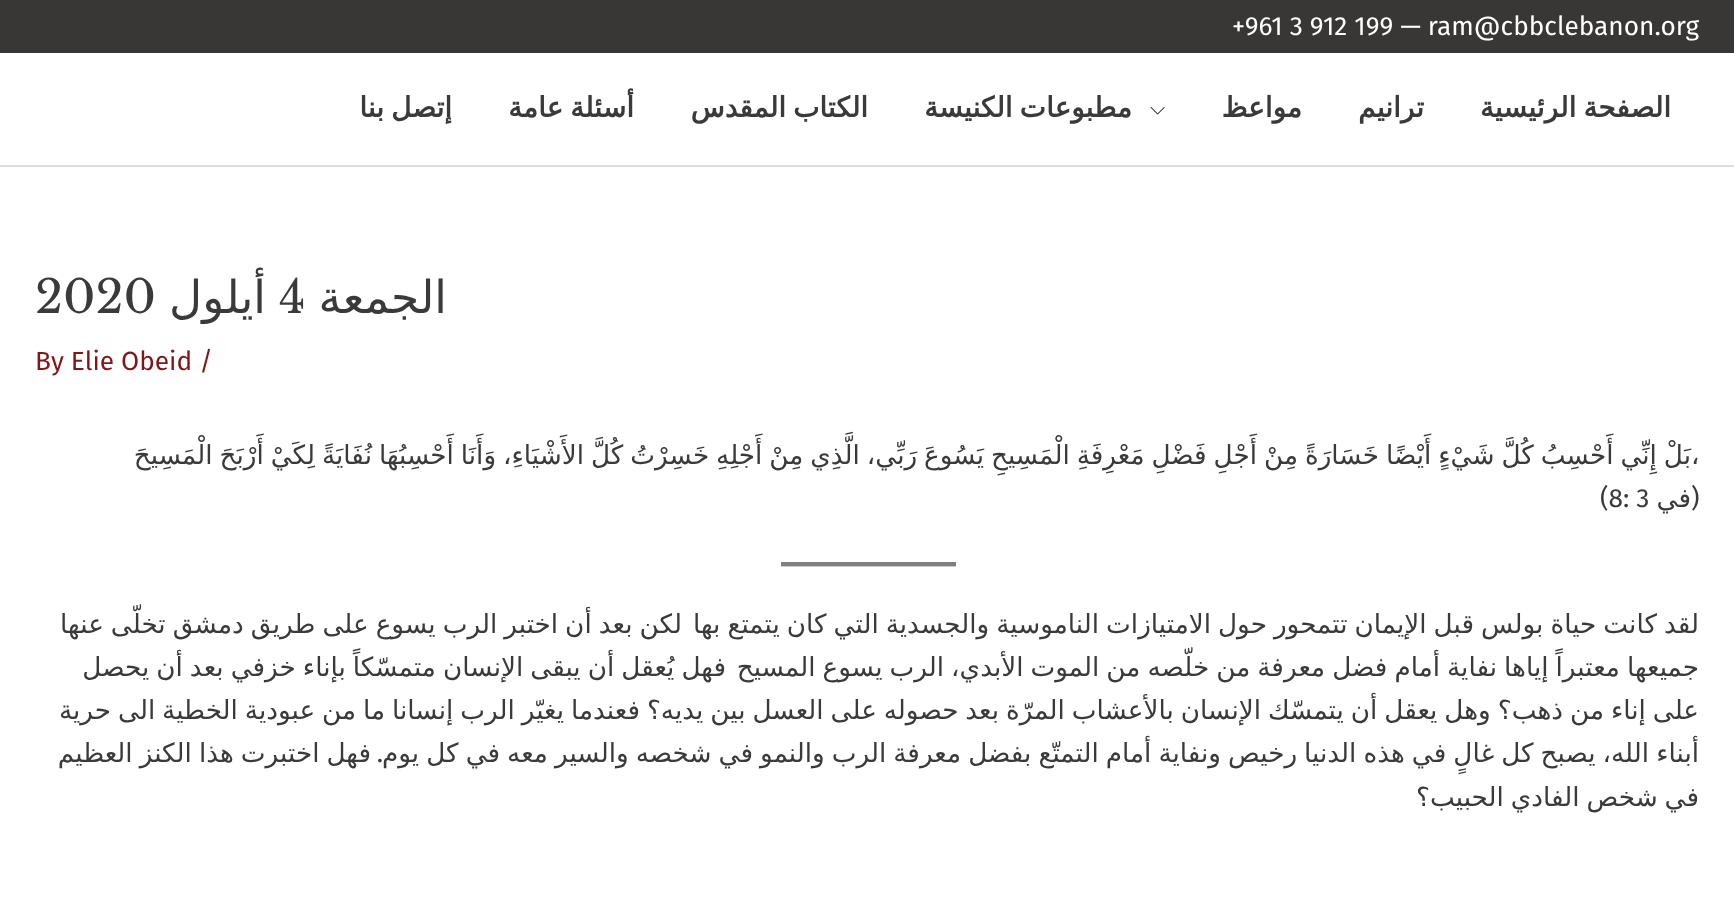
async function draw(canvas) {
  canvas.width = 1734
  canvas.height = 905
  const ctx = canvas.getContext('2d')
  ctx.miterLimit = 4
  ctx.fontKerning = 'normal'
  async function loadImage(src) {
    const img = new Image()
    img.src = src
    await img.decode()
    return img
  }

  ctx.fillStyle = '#fff'
  ctx.fillRect(0, 0, 1734, 905)
  ctx.fillStyle = '#393736'
  ctx.fillRect(0, 0, 1734, 53)
  ctx.font = '26.25px Fira Sans'
  ctx.fillStyle = '#fff'
  ctx.fillText('+961 3 912 199 — ram@cbbclebanon.org', 1232, 35)
  ctx.fillStyle = '#ddd'
  ctx.fillRect(0, 165, 1734, 2)
  ctx.wordSpacing = '-2px'
  ctx.direction = 'rtl'
  ctx.font = 'bold 28px DejaVu Sans'
  ctx.fillStyle = '#3a3a3a'
  ctx.fillText('الصفحة الرئيسية', 1671, 117)
  ctx.wordSpacing = '0px'
  ctx.fillText('ترانيم', 1424, 117)
  ctx.fillText('مواعظ', 1302, 117)
  ctx.drawImage(await loadImage('image0.png'), 1150, 106, 15, 9)
  ctx.wordSpacing = '-2px'
  ctx.fillText('مطبوعات الكنيسة', 1132, 117)
  ctx.fillText('الكتاب المقدس', 868, 117)
  ctx.fillText('أسئلة عامة', 634, 117)
  ctx.fillText('إتصل بنا', 452, 117)
  ctx.wordSpacing = '0px'
  ctx.font = '45.5px DejaVu Sans'
  ctx.fillText('الجمعة', 447, 313)
  ctx.direction = 'ltr'
  ctx.font = '45.5px Libre Baskerville'
  ctx.fillText('4', 279, 313)
  ctx.direction = 'rtl'
  ctx.font = '45.5px DejaVu Sans'
  ctx.fillText('أيلول', 266, 313)
  ctx.direction = 'ltr'
  ctx.font = '45.5px Libre Baskerville'
  ctx.fillText('2020', 35, 313)
  ctx.font = '26.25px Fira Sans'
  ctx.fillStyle = '#811517'
  ctx.fillText('By Elie Obeid /', 35, 370)
  ctx.wordSpacing = '-1.4px'
  ctx.direction = 'rtl'
  ctx.font = '26.25px DejaVu Sans'
  ctx.fillStyle = '#3a3a3a'
  ctx.fillText('بَلْ إِنِّي أَحْسِبُ كُلَّ شَيْءٍ أَيْضًا خَسَارَةً مِنْ أَجْلِ فَضْلِ مَعْرِفَةِ الْمَسِيحِ يَسُوعَ رَبِّي، الَّذِي مِنْ أَجْلِهِ خَسِرْتُ كُلَّ الأَشْيَاءِ، وَأَنَا أَحْسِبُهَا نُفَايَةً لِكَيْ أَرْبَحَ الْمَسِيحَ', 1691, 464)
  ctx.wordSpacing = '0px'
  ctx.direction = 'ltr'
  ctx.fillText('،', 1691, 464)
  ctx.font = '26.25px Fira Sans'
  ctx.fillText(')', 1691, 507)
  ctx.direction = 'rtl'
  ctx.font = '26.25px DejaVu Sans'
  ctx.fillText('في', 1691, 507)
  ctx.direction = 'ltr'
  ctx.font = '26.25px Fira Sans'
  ctx.fillText('(8: 3', 1600, 507)
  ctx.fillStyle = '#ccc'
  ctx.fillRect(781, 566, 175, 1)
  ctx.fillStyle = '#808080'
  ctx.fillRect(781, 562, 175, 4)
  ctx.wordSpacing = '-1.3px'
  ctx.direction = 'rtl'
  ctx.font = '26.25px DejaVu Sans'
  ctx.fillStyle = '#3a3a3a'
  ctx.fillText('لقد كانت حياة بولس قبل الإيمان تتمحور حول الامتيازات الناموسية والجسدية التي كان يتمتع بها', 1699, 633)
  ctx.fillText('لكن بعد أن اختبر الرب يسوع على طريق دمشق تخلّى عنها', 682, 633)
  ctx.fillText('جميعها معتبراً إياها نفاية أمام فضل معرفة من خلّصه من الموت الأبدي، الرب يسوع المسيح', 1699, 676)
  ctx.fillText('فهل يُعقل أن يبقى الإنسان متمسّكاً بإناء خزفي بعد أن يحصل', 726, 676)
  ctx.wordSpacing = '-1.4px'
  ctx.fillText('على إناء من ذهب؟ وهل يعقل أن يتمسّك الإنسان بالأعشاب المرّة بعد حصوله على العسل بين يديه؟ فعندما يغيّر الرب إنسانا ما من عبودية الخطية الى حرية', 1699, 719)
  ctx.wordSpacing = '-1.3px'
  ctx.fillText('أبناء الله، يصبح كل غالٍ في هذه الدنيا رخيص ونفاية أمام التمتّع بفضل معرفة الرب والنمو في شخصه والسير معه في كل يوم', 1699, 762)
  ctx.wordSpacing = '0px'
  ctx.font = '26.25px Fira Sans'
  ctx.fillText('.', 383, 762)
  ctx.wordSpacing = '-1.3px'
  ctx.font = '26.25px DejaVu Sans'
  ctx.fillText('فهل اختبرت هذا الكنز العظيم', 371, 762)
  ctx.wordSpacing = '-1.4px'
  ctx.fillText('في شخص الفادي الحبيب؟', 1699, 806)
}

draw(document.querySelector('canvas'))
